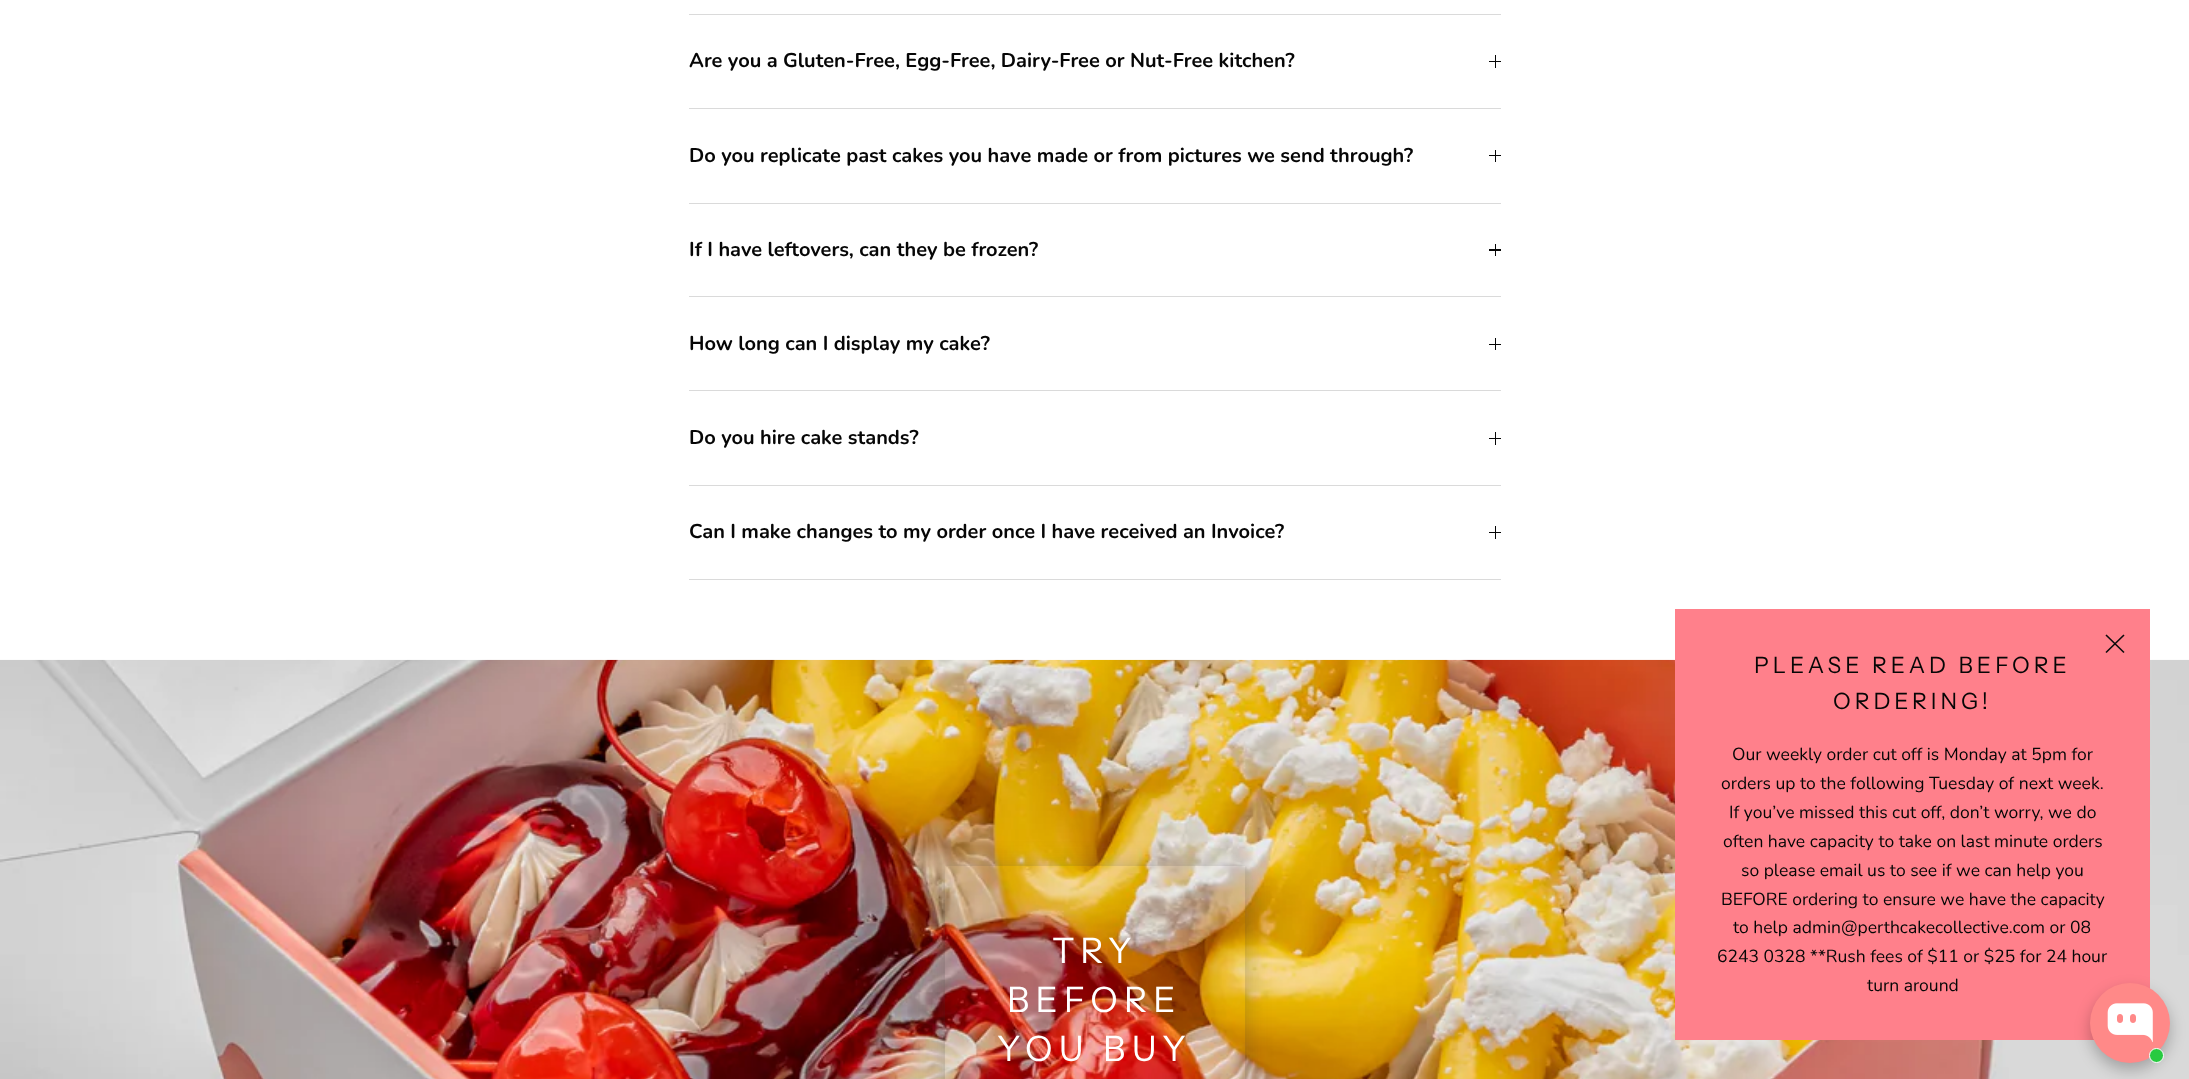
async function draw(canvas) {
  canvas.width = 2189
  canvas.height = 1079
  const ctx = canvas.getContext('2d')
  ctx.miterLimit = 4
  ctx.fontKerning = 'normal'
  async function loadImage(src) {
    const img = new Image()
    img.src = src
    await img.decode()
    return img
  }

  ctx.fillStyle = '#fff'
  ctx.fillRect(0, 0, 2189, 1079)
  ctx.fillStyle = '#dadada'
  ctx.fillRect(689, 14, 812, 1)
  ctx.fillRect(689, 108, 812, 1)
  ctx.font = 'bold 20px Nunito'
  ctx.fillStyle = '#060606'
  ctx.fillText('Are you a Gluten-Free, Egg-Free, Dairy-Free or Nut-Free kitchen?', 689, 67)
  ctx.fillRect(1495, 55, 1, 13)
  ctx.fillRect(1489, 61, 12, 1)
  ctx.fillStyle = '#dadada'
  ctx.fillRect(689, 203, 812, 1)
  ctx.fillStyle = '#060606'
  ctx.fillText('Do you replicate past cakes you have made or from pictures we send through?', 689, 162)
  ctx.fillRect(1495, 150, 1, 12)
  ctx.fillRect(1489, 155, 12, 1)
  ctx.fillStyle = '#dadada'
  ctx.fillRect(689, 296, 812, 1)
  ctx.fillStyle = '#060606'
  ctx.fillText('If I have leftovers, can they be frozen?', 689, 256)
  ctx.fillRect(1495, 244, 1, 12)
  ctx.fillRect(1489, 249, 12, 2)
  ctx.fillStyle = '#dadada'
  ctx.fillRect(689, 390, 812, 1)
  ctx.fillStyle = '#060606'
  ctx.fillText('How long can I display my cake?', 689, 350)
  ctx.fillRect(1495, 338, 1, 12)
  ctx.fillRect(1489, 344, 12, 1)
  ctx.fillStyle = '#dadada'
  ctx.fillRect(689, 485, 812, 1)
  ctx.fillStyle = '#060606'
  ctx.fillText('Do you hire cake stands?', 689, 444)
  ctx.fillRect(1495, 432, 1, 13)
  ctx.fillRect(1489, 438, 12, 1)
  ctx.fillStyle = '#dadada'
  ctx.fillRect(689, 579, 812, 1)
  ctx.fillStyle = '#060606'
  ctx.fillText('Can I make changes to my order once I have received an Invoice?', 689, 538)
  ctx.fillRect(1495, 526, 1, 13)
  ctx.fillRect(1489, 532, 12, 1)
  ctx.drawImage(await loadImage('image0.png'), 0, 659, 2189, 420)
  ctx.save()
  ctx.beginPath()
  ctx.moveTo(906, 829)
  ctx.lineTo(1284, 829)
  ctx.lineTo(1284, 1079)
  ctx.lineTo(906, 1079)
  ctx.closePath()
  ctx.moveTo(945, 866)
  ctx.lineTo(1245, 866)
  ctx.lineTo(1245, 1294)
  ctx.lineTo(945, 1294)
  ctx.closePath()
  ctx.clip('evenodd')
  ctx.fillStyle = '#3636364d'
  ctx.filter = 'blur(12.5px)'
  ctx.beginPath()
  ctx.rect(945, 868, 300, 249)
  ctx.fill()
  ctx.filter = 'none'
  ctx.restore()
  ctx.letterSpacing = '6.25px'
  ctx.font = '35px Instrument Sans'
  ctx.fillStyle = '#fff'
  ctx.fillText('TRY', 1052, 963)
  ctx.fillText('BEFORE', 1007, 1012)
  ctx.fillText('YOU BUY', 997, 1061)
  ctx.fillStyle = '#ff808b'
  ctx.fillRect(1675, 609, 475, 431)
  ctx.beginPath()
  ctx.moveTo(2106, 635)
  ctx.lineTo(2124, 652.5)
  ctx.moveTo(2106, 652.5)
  ctx.lineTo(2124, 635)
  ctx.strokeStyle = '#0b0b0b'
  ctx.lineWidth = 1.6
  ctx.stroke()
  ctx.letterSpacing = '4px'
  ctx.font = '22.5px Instrument Sans'
  ctx.fillStyle = '#060606'
  ctx.fillText('PLEASE READ BEFORE', 1754, 673)
  ctx.fillText('ORDERING!', 1833, 709)
  ctx.letterSpacing = '0px'
  ctx.font = '17.5px Nunito'
  ctx.fillText('Our weekly order cut off is Monday at 5pm for', 1732, 760)
  ctx.fillText('orders up to the following Tuesday of next week.', 1721, 789)
  ctx.fillText('If you’ve missed this cut off, don’t worry, we do', 1729, 818)
  ctx.fillText('often have capacity to take on last minute orders', 1723, 847)
  ctx.fillText('so please email us to see if we can help you', 1741, 876)
  ctx.fillText('BEFORE ordering to ensure we have the capacity', 1721, 905)
  ctx.fillText('to help admin@perthcakecollective.com or 08', 1733, 933)
  ctx.fillText('6243 0328 **Rush fees of $11 or $25 for 24 hour', 1717, 962)
  ctx.fillText('turn around', 1867, 991)
  ctx.fillStyle = '#00000040'
  ctx.filter = 'blur(7.5px)'
  ctx.beginPath()
  ctx.roundRect(2090, 990, 80, 80, 40)
  ctx.fill()
  ctx.filter = 'none'
  ctx.fillStyle = '#ff8988'
  ctx.beginPath()
  ctx.arc(2130, 1023, 40, 0, 2 * Math.PI)
  ctx.fill()
  ctx.drawImage(await loadImage('image1.png'), 2107, 1003, 46, 40)
  ctx.fillStyle = '#27ca40'
  ctx.beginPath()
  ctx.arc(2156.5, 1055.5, 7, 0, 2 * Math.PI)
  ctx.fill()
  ctx.strokeStyle = '#fff'
  ctx.lineWidth = 1
  ctx.stroke()
}

draw(document.querySelector('canvas'))
